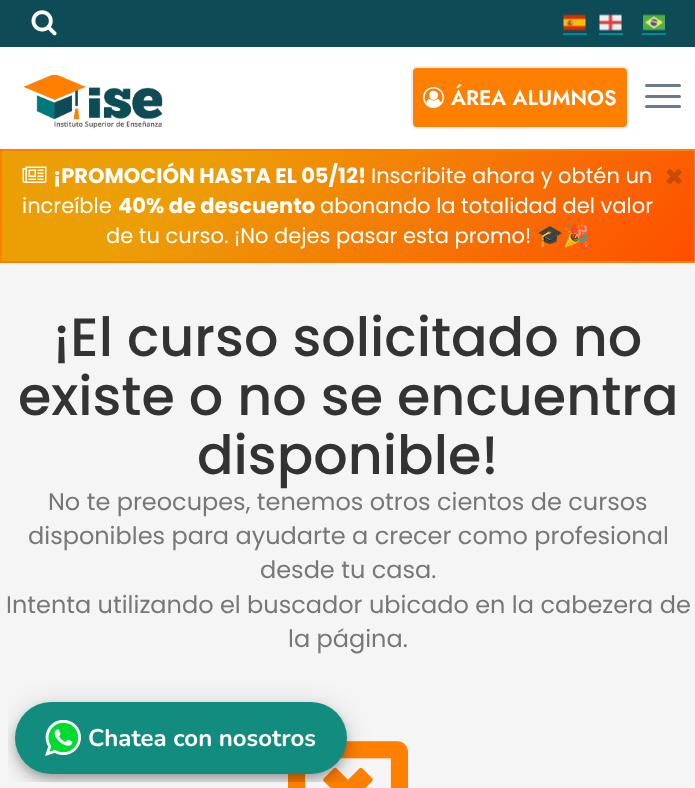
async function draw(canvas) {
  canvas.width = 695
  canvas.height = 788
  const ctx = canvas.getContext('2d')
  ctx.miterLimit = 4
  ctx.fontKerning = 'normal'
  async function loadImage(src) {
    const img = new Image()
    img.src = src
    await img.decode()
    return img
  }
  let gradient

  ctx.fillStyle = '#0d4c57'
  ctx.fillRect(0, 0, 695, 788)
  ctx.drawImage(await loadImage('image0.png'), 31, 10, 26, 26)
  ctx.drawImage(await loadImage('image1.png'), 563, 14, 23, 17)
  ctx.drawImage(await loadImage('image2.png'), 599, 14, 23, 17)
  ctx.drawImage(await loadImage('image3.png'), 643, 14, 22, 17)
  ctx.fillStyle = '#0089a1'
  ctx.fillRect(563, 33, 24, 2)
  ctx.fillRect(599, 33, 24, 2)
  ctx.fillRect(642, 33, 24, 2)
  ctx.fillStyle = '#fff'
  ctx.fillRect(0, 47, 695, 102)
  ctx.drawImage(await loadImage('image4.png'), 23, 75, 140, 54)
  ctx.fillStyle = '#ff7f00'
  ctx.beginPath()
  ctx.roundRect(412, 67, 216, 61, 5)
  ctx.fill()
  ctx.strokeStyle = '#eaeff7'
  ctx.lineWidth = 2
  ctx.stroke()
  ctx.drawImage(await loadImage('image5.png'), 423, 87, 21, 21)
  ctx.font = '600 21px Jost'
  ctx.fillStyle = '#fff'
  ctx.fillText('ÁREA ALUMNOS', 451, 105)
  ctx.fillStyle = '#70798b'
  ctx.beginPath()
  ctx.roundRect(645, 105, 36, 3, 1.5)
  ctx.fill()
  ctx.beginPath()
  ctx.roundRect(645, 95, 36, 3, 1.5)
  ctx.fill()
  ctx.beginPath()
  ctx.roundRect(645, 84, 36, 3, 1.5)
  ctx.fill()
  gradient = ctx.createLinearGradient(549, 407, 147, 4.5)
  gradient.addColorStop(0, '#ff4e00')
  gradient.addColorStop(0.74, '#ec9f05')
  ctx.fillStyle = gradient
  ctx.fillRect(2, 151, 692, 110)
  ctx.strokeStyle = '#ff7f00'
  ctx.strokeRect(1, 150, 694, 112)
  ctx.drawImage(await loadImage('image6.png'), 22, 166, 25, 17)
  ctx.font = 'bold 21px Poppins'
  ctx.fillStyle = '#fff'
  ctx.fillText('¡PROMOCIÓN HASTA EL 05/12!', 53, 183)
  ctx.font = '21px Poppins'
  ctx.fillText('Inscribite ahora y obtén un', 371, 183)
  ctx.fillText('increíble', 22, 213)
  ctx.font = 'bold 21px Poppins'
  ctx.fillText('40% de descuento', 118, 213)
  ctx.font = '21px Poppins'
  ctx.fillText('abonando la totalidad del valor', 320, 213)
  ctx.fillText('de tu curso. ¡No dejes pasar esta promo!', 106, 243)
  ctx.font = '21px Noto Color Emoji'
  ctx.fillText('🎓🎉', 537, 243)
  ctx.font = 'bold 32px Poppins'
  ctx.fillStyle = '#c94a01'
  ctx.fillText('×', 664, 188)
  ctx.fillStyle = '#f5f5f5'
  ctx.fillRect(0, 263, 695, 525)
  ctx.font = '500 54px Poppins'
  ctx.fillStyle = '#333'
  ctx.fillText('¡El curso solicitado no', 53, 356)
  ctx.fillText('existe o no se encuentra', 18, 415)
  ctx.fillText('disponible!', 197, 474)
  ctx.font = '24px Poppins'
  ctx.fillStyle = '#777'
  ctx.fillText('No te preocupes, tenemos otros cientos de cursos', 48, 510)
  ctx.fillText('disponibles para ayudarte a crecer como profesional', 28, 544)
  ctx.fillText('desde tu casa.', 260, 578)
  ctx.fillText('Intenta utilizando el buscador ubicado en la cabezera de', 6, 613)
  ctx.fillText('la página.', 288, 647)
  ctx.drawImage(await loadImage('image7.png'), 288, 741, 120, 47)
  ctx.save()
  ctx.beginPath()
  ctx.rect(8, 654, 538, 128)
  ctx.clip()
  ctx.fillStyle = '#0000001f'
  ctx.filter = 'blur(13.5px)'
  ctx.beginPath()
  ctx.roundRect(15, 704, 332, 72, 36)
  ctx.fill()
  ctx.filter = 'none'
  ctx.fillStyle = '#00000024'
  ctx.filter = 'blur(7.5px)'
  ctx.beginPath()
  ctx.roundRect(15, 711, 332, 72, 36)
  ctx.fill()
  ctx.filter = 'none'
  ctx.restore()
  ctx.fillStyle = '#00000033'
  ctx.filter = 'blur(4px)'
  ctx.beginPath()
  ctx.roundRect(17, 708, 328, 69, 34.5)
  ctx.fill()
  ctx.filter = 'none'
  ctx.fillStyle = '#128c7e'
  ctx.beginPath()
  ctx.roundRect(15, 702, 332, 72, 36)
  ctx.fill()
  ctx.drawImage(await loadImage('image8.png'), 45, 720, 36, 36)
  ctx.font = 'bold 24px Nunito'
  ctx.fillStyle = '#fff'
  ctx.fillText('Chatea con nosotros', 88, 746)
}

draw(document.querySelector('canvas'))
